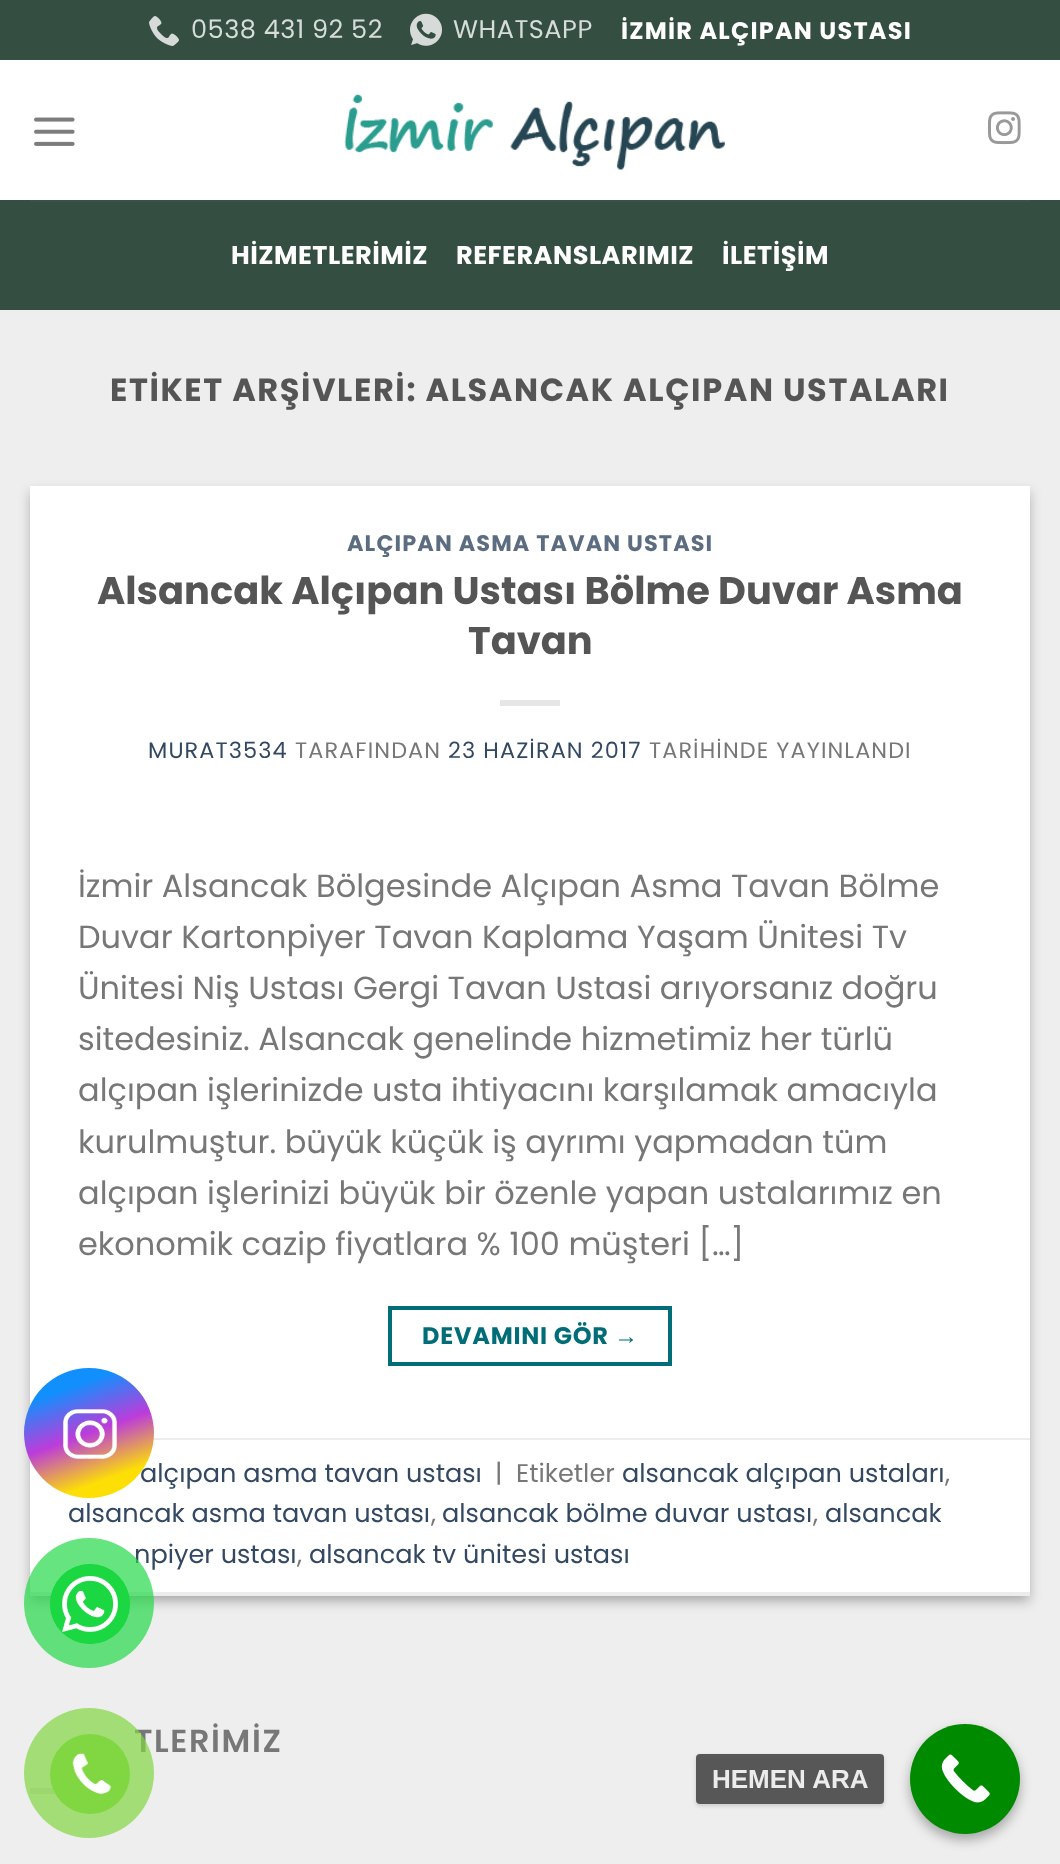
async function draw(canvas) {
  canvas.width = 1060
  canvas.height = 1864
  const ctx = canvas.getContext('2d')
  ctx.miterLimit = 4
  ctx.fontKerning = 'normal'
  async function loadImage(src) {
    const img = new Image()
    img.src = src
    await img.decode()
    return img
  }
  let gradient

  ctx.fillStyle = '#fff'
  ctx.fillRect(0, 0, 1060, 1864)
  ctx.fillStyle = '#344e41'
  ctx.fillRect(0, 0, 1060, 60)
  ctx.drawImage(await loadImage('image0.png'), 149, 16, 30, 30)
  ctx.letterSpacing = '0.5px'
  ctx.font = '25.6px Poppins'
  ctx.fillStyle = '#d6dcd9'
  ctx.fillText('0538 431 92 52', 191, 38)
  ctx.drawImage(await loadImage('image1.png'), 410, 13, 32, 33)
  ctx.fillText('WHATSAPP', 453, 38)
  ctx.letterSpacing = '1.2px'
  ctx.font = 'bold 24px Poppins'
  ctx.fillStyle = '#fff'
  ctx.fillText('İZMİR ALÇIPAN USTASI', 621, 39)
  ctx.drawImage(await loadImage('image2.png'), 34, 117, 41, 29)
  ctx.drawImage(await loadImage('image3.png'), 344, 94, 381, 76)
  ctx.drawImage(await loadImage('image4.png'), 988, 111, 33, 34)
  ctx.fillStyle = '#344e41'
  ctx.fillRect(0, 200, 1060, 110)
  ctx.fillStyle = '#3b5246'
  ctx.fillRect(30, 200, 1000, 2)
  ctx.letterSpacing = '0.5px'
  ctx.font = 'bold 25.6px Poppins'
  ctx.fillStyle = '#fff'
  ctx.fillText('HİZMETLERİMİZ', 231, 264)
  ctx.fillText('REFERANSLARIMIZ', 456, 264)
  ctx.fillText('İLETİŞİM', 722, 264)
  ctx.fillStyle = '#eee'
  ctx.fillRect(0, 310, 1060, 1554)
  ctx.letterSpacing = '1.6px'
  ctx.font = 'bold 32px Poppins'
  ctx.fillStyle = '#555'
  ctx.fillText('ETİKET ARŞİVLERİ: ALSANCAK ALÇIPAN USTALARI', 110, 401)
  ctx.fillStyle = '#0000003b'
  ctx.filter = 'blur(6px)'
  ctx.beginPath()
  ctx.rect(30, 492, 1000, 1110)
  ctx.fill()
  ctx.filter = 'none'
  ctx.fillStyle = '#00000029'
  ctx.filter = 'blur(6px)'
  ctx.beginPath()
  ctx.rect(38, 500, 984, 1094)
  ctx.fill()
  ctx.filter = 'none'
  ctx.fillStyle = '#fff'
  ctx.fillRect(30, 486, 1000, 1106)
  ctx.letterSpacing = '1.1px'
  ctx.font = 'bold 22.4px Poppins'
  ctx.fillStyle = '#5c6d81'
  ctx.fillText('ALÇIPAN ASMA TAVAN USTASI', 347, 551)
  ctx.letterSpacing = '0px'
  ctx.font = 'bold 38.4px Poppins'
  ctx.fillStyle = '#555'
  ctx.fillText('Alsancak Alçıpan Ustası Bölme Duvar Asma', 97, 604)
  ctx.fillText('Tavan', 468, 654)
  ctx.fillStyle = '#e6e6e6'
  ctx.fillRect(500, 700, 60, 6)
  ctx.letterSpacing = '1.1px'
  ctx.font = '22.4px Poppins'
  ctx.fillStyle = '#334862'
  ctx.fillText('MURAT3534', 148, 758)
  ctx.fillStyle = '#777'
  ctx.fillText('TARAFINDAN', 295, 758)
  ctx.fillStyle = '#334862'
  ctx.fillText('23 HAZİRAN 2017', 448, 758)
  ctx.fillStyle = '#777'
  ctx.fillText('TARİHİNDE YAYINLANDI', 649, 758)
  ctx.letterSpacing = '0px'
  ctx.font = '32px Poppins'
  ctx.fillText('İzmir Alsancak Bölgesinde Alçıpan Asma Tavan Bölme', 78, 897)
  ctx.fillText('Duvar Kartonpiyer Tavan Kaplama Yaşam Ünitesi Tv', 78, 948)
  ctx.fillText('Ünitesi Niş Ustası Gergi Tavan Ustasi arıyorsanız doğru', 78, 999)
  ctx.fillText('sitedesiniz. Alsancak genelinde hizmetimiz her türlü', 78, 1050)
  ctx.fillText('alçıpan işlerinizde usta ihtiyacını karşılamak amacıyla', 78, 1101)
  ctx.fillText('kurulmuştur. büyük küçük iş ayrımı yapmadan tüm', 78, 1153)
  ctx.fillText('alçıpan işlerinizi büyük bir özenle yapan ustalarımız en', 78, 1204)
  ctx.fillText('ekonomik cazip fiyatlara % 100 müşteri […]', 78, 1255)
  ctx.strokeStyle = '#006d77'
  ctx.lineWidth = 4
  ctx.strokeRect(390, 1308, 280, 56)
  ctx.letterSpacing = '0.75px'
  ctx.font = 'bold 24px Poppins'
  ctx.fillStyle = '#006d77'
  ctx.fillText('DEVAMINI GÖR', 422, 1344)
  ctx.font = 'bold 24px Liberation Sans'
  ctx.fillText('→', 614, 1344)
  ctx.fillStyle = '#ececec'
  ctx.fillRect(153, 1438, 877, 2)
  ctx.fillRect(30, 1592, 1000, 4)
  ctx.letterSpacing = '0px'
  ctx.font = '25.6px Poppins'
  ctx.fillStyle = '#334862'
  ctx.fillText('alçıpan asma tavan ustası', 140, 1482)
  ctx.fillStyle = '#777'
  ctx.fillText('|', 495, 1482)
  ctx.fillText('Etiketler', 516, 1482)
  ctx.fillStyle = '#334862'
  ctx.fillText('alsancak alçıpan ustaları', 622, 1482)
  ctx.fillStyle = '#777'
  ctx.fillText(',', 945, 1482)
  ctx.fillStyle = '#334862'
  ctx.fillText('alsancak asma tavan ustası', 68, 1522)
  ctx.fillStyle = '#777'
  ctx.fillText(',', 431, 1522)
  ctx.fillStyle = '#334862'
  ctx.fillText('alsancak bölme duvar ustası', 442, 1522)
  ctx.fillStyle = '#777'
  ctx.fillText(',', 813, 1522)
  ctx.fillStyle = '#334862'
  ctx.fillText('alsancak', 825, 1522)
  ctx.fillText('npiyer ustası', 134, 1563)
  ctx.fillStyle = '#777'
  ctx.fillText(',', 297, 1563)
  ctx.fillStyle = '#334862'
  ctx.fillText('alsancak tv ünitesi ustası', 309, 1563)
  ctx.letterSpacing = '1.6px'
  ctx.font = '600 32px Poppins'
  ctx.fillStyle = '#777'
  ctx.fillText('TLERİMİZ', 134, 1752)
  ctx.fillStyle = '#d6d6d6'
  ctx.fillRect(30, 1788, 26, 6)
  gradient = ctx.createLinearGradient(61, 1355, 117, 1511)
  gradient.addColorStop(0.2, '#118ffd')
  gradient.addColorStop(0.5, '#bc3cda')
  gradient.addColorStop(0.8, '#fddf05')
  ctx.fillStyle = gradient
  ctx.beginPath()
  ctx.arc(89, 1433, 65, 0, 2 * Math.PI)
  ctx.fill()
  ctx.drawImage(await loadImage('image5.png'), 63, 1409, 54, 50)
  ctx.fillStyle = '#23d948b3'
  ctx.beginPath()
  ctx.arc(89, 1603, 65, 0, 2 * Math.PI)
  ctx.fill()
  ctx.fillStyle = '#1cd741'
  ctx.beginPath()
  ctx.arc(90, 1604, 40, 0, 2 * Math.PI)
  ctx.fill()
  ctx.drawImage(await loadImage('image6.png'), 50, 1564, 80, 80)
  ctx.fillStyle = '#81d742b3'
  ctx.beginPath()
  ctx.arc(89, 1773, 65, 0, 2 * Math.PI)
  ctx.fill()
  ctx.fillStyle = '#81d742'
  ctx.beginPath()
  ctx.arc(90, 1774, 40, 0, 2 * Math.PI)
  ctx.fill()
  ctx.drawImage(await loadImage('image7.png'), 72, 1753, 39, 41)
  ctx.fillStyle = '#0000004d'
  ctx.filter = 'blur(6px)'
  ctx.beginPath()
  ctx.roundRect(910, 1730, 110, 110, 55)
  ctx.fill()
  ctx.filter = 'none'
  ctx.fillStyle = '#008a00'
  ctx.beginPath()
  ctx.arc(965, 1779, 55, 0, 2 * Math.PI)
  ctx.fill()
  ctx.drawImage(await loadImage('image8.png'), 941, 1754, 49, 49)
  ctx.save()
  ctx.beginPath()
  ctx.moveTo(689, 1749)
  ctx.lineTo(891, 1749)
  ctx.lineTo(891, 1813)
  ctx.lineTo(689, 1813)
  ctx.closePath()
  ctx.moveTo(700, 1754)
  ctx.lineTo(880, 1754)
  ctx.bezierCurveTo(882, 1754, 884, 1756, 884, 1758)
  ctx.lineTo(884, 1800)
  ctx.bezierCurveTo(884, 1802, 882, 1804, 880, 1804)
  ctx.lineTo(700, 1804)
  ctx.bezierCurveTo(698, 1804, 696, 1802, 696, 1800)
  ctx.lineTo(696, 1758)
  ctx.bezierCurveTo(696, 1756, 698, 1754, 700, 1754)
  ctx.closePath()
  ctx.clip('evenodd')
  ctx.fillStyle = '#00000026'
  ctx.filter = 'blur(2px)'
  ctx.beginPath()
  ctx.roundRect(696, 1756, 188, 50, 4)
  ctx.fill()
  ctx.filter = 'none'
  ctx.restore()
  ctx.fillStyle = '#464646e6'
  ctx.beginPath()
  ctx.roundRect(696, 1754, 188, 50, 4)
  ctx.fill()
  ctx.letterSpacing = '0px'
  ctx.font = 'bold 26px Liberation Sans'
  ctx.fillStyle = '#ececec'
  ctx.fillText('HEMEN ARA', 712, 1788)
}

draw(document.querySelector('canvas'))
